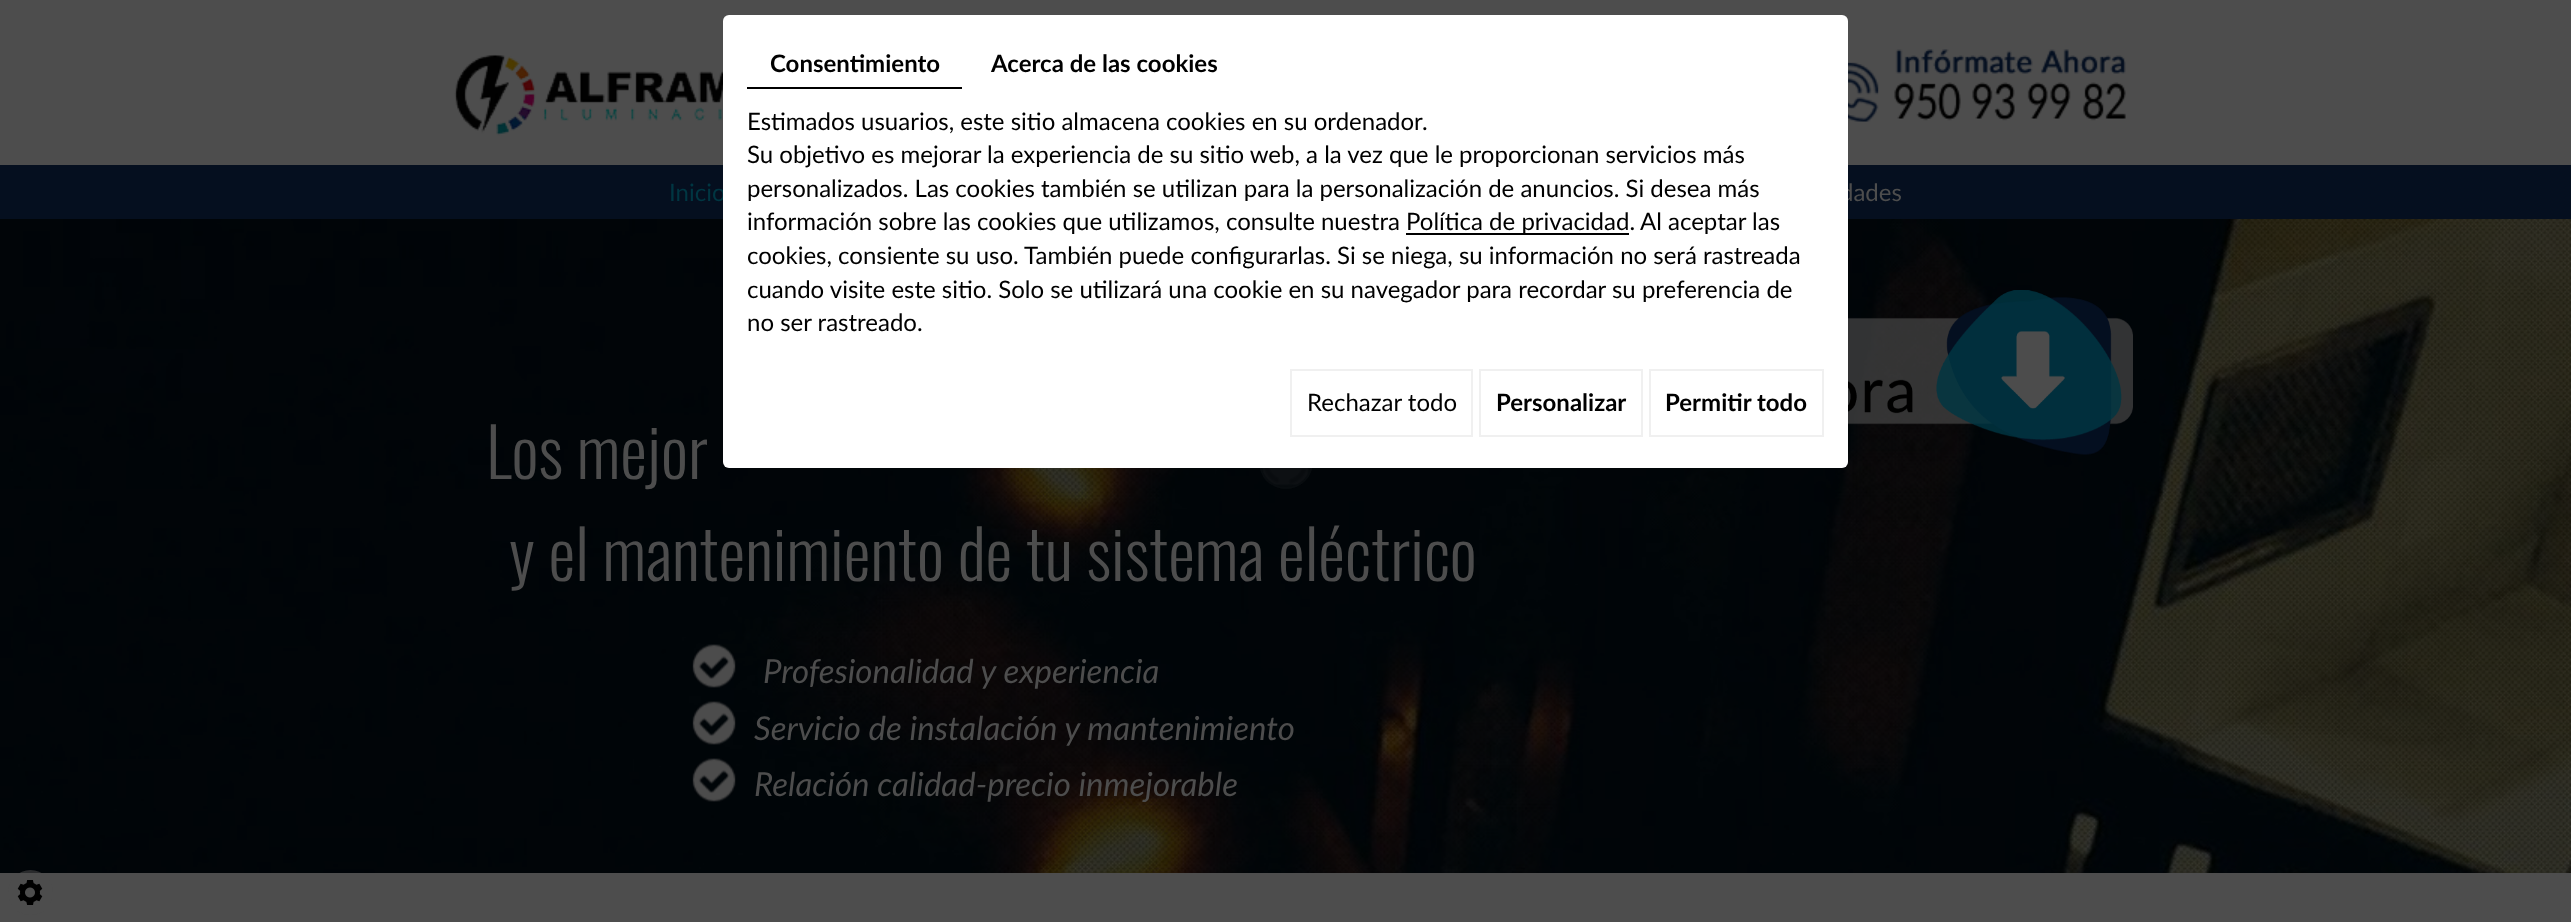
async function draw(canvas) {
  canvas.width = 2571
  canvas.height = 922
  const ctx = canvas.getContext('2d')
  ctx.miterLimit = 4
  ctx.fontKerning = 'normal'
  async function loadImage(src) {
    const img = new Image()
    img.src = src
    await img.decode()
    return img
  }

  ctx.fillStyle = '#fff'
  ctx.fillRect(0, 0, 2571, 922)
  ctx.fillStyle = '#4d4d4d'
  ctx.fillRect(0, 0, 2571, 165)
  ctx.fillStyle = '#050f1f'
  ctx.fillRect(0, 165, 2571, 54)
  ctx.font = '24px Lato'
  ctx.fillStyle = '#003642'
  ctx.fillText('Inicio', 669, 201)
  ctx.fillStyle = '#4d4d4d'
  ctx.fillText('dades', 1840, 201)
  ctx.drawImage(await loadImage('image7.png'), 0, 219, 2571, 654)
  ctx.fillStyle = '#4d4d4d17'
  ctx.beginPath()
  ctx.arc(1286, 462, 27, 0, 2 * Math.PI)
  ctx.fill()
  ctx.drawImage(await loadImage('image8.png'), 1262, 468, 47, 17)
  ctx.beginPath()
  ctx.arc(1286, 462, 26, 0, 2 * Math.PI)
  ctx.strokeStyle = '#080c0f'
  ctx.lineWidth = 2
  ctx.stroke()
  ctx.fillStyle = '#fff'
  ctx.beginPath()
  ctx.roundRect(723, 15, 1125, 453, 6)
  ctx.fill()
  ctx.fillStyle = '#000'
  ctx.fillRect(747, 87, 215, 2)
  ctx.font = 'bold 24px Lato'
  ctx.fillText('Consentimiento', 770, 72)
  ctx.fillText('Acerca de las cookies', 991, 72)
  ctx.font = '24px Lato'
  ctx.fillText('Estimados usuarios, este sitio almacena cookies en su ordenador.', 747, 130)
  ctx.fillText('Su objetivo es mejorar la experiencia de su sitio web, a la vez que le proporcionan servicios más', 747, 163)
  ctx.fillText('personalizados. Las cookies también se utilizan para la personalización de anuncios. Si desea más', 747, 197)
  ctx.fillText('información sobre las cookies que utilizamos, consulte nuestra', 747, 230)
  ctx.fillRect(1406, 233, 223, 2)
  ctx.fillText('Política de privacidad.', 1406, 230)
  ctx.fillText('Al aceptar las', 1640, 230)
  ctx.fillText('cookies, consiente su uso. También puede configurarlas. Si se niega, su información no será rastreada', 747, 264)
  ctx.fillText('cuando visite este sitio. Solo se utilizará una cookie en su navegador para recordar su preferencia de', 747, 298)
  ctx.fillText('no ser rastreado.', 747, 331)
  ctx.strokeStyle = '#f0f0f0'
  ctx.strokeRect(1291, 370, 181, 66)
  ctx.fillText('Rechazar todo', 1307, 411)
  ctx.strokeRect(1480, 370, 162, 66)
  ctx.font = 'bold 24px Lato'
  ctx.fillText('Personalizar', 1496, 411)
  ctx.strokeRect(1650, 370, 173, 66)
  ctx.fillText('Permitir todo', 1665, 411)
  ctx.fillStyle = '#4d4d4d'
  ctx.fillRect(0, 873, 2571, 49)
  ctx.fillStyle = '#4d4d4d8a'
  ctx.beginPath()
  ctx.arc(30.5, 892.5, 22.5, 0, 2 * Math.PI)
  ctx.fill()
  ctx.drawImage(await loadImage('image0.png'), 17, 880, 26, 25)
  ctx.drawImage(await loadImage('image1.png'), 454, 54, 269, 82)
  ctx.drawImage(await loadImage('image2.png'), 1848, 49, 278, 73)
  ctx.drawImage(await loadImage('image3.png'), 1848, 290, 285, 165)
  ctx.font = '300 67.5px Oswald'
  ctx.fillStyle = '#4d4d4d'
  ctx.fillText('Los mejor', 486, 479)
  ctx.fillText('y el mantenimiento de tu sistema eléctrico', 509, 581)
  ctx.drawImage(await loadImage('image4.png'), 692, 644, 44, 44)
  ctx.font = 'italic 33px Lato'
  ctx.fillText('Profesionalidad y experiencia', 763, 683)
  ctx.drawImage(await loadImage('image5.png'), 692, 701, 44, 44)
  ctx.fillText('Servicio de instalación y mantenimiento', 754, 740)
  ctx.drawImage(await loadImage('image6.png'), 692, 758, 44, 44)
  ctx.fillText('Relación calidad-precio inmejorable', 754, 796)
}

draw(document.querySelector('canvas'))
